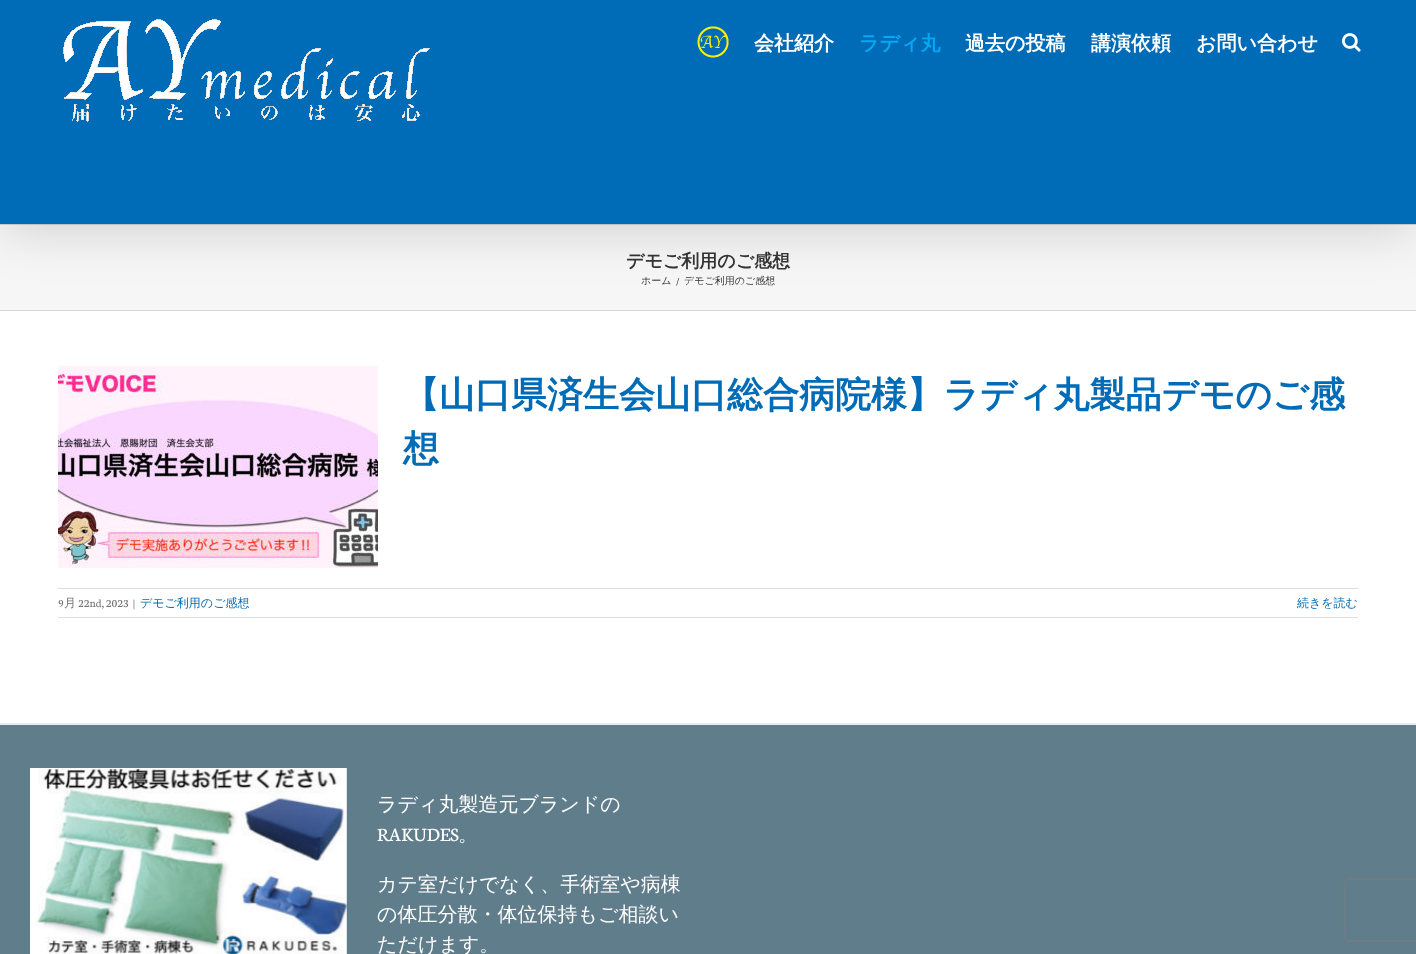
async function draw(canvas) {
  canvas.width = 1416
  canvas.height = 954
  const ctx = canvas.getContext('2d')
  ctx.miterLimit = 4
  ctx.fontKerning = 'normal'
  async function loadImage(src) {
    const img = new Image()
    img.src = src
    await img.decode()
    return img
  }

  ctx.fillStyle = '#fff'
  ctx.fillRect(0, 0, 1416, 954)
  ctx.fillStyle = '#f6f6f6'
  ctx.fillRect(0, 225, 1416, 85)
  ctx.fillStyle = '#d2d3d4'
  ctx.fillRect(0, 224, 1416, 1)
  ctx.fillStyle = '#00000024'
  ctx.filter = 'blur(25px)'
  ctx.beginPath()
  ctx.rect(2, 12, 1412, 220)
  ctx.fill()
  ctx.filter = 'none'
  ctx.fillStyle = '#006bb6'
  ctx.fillRect(0, 0, 1416, 224)
  ctx.drawImage(await loadImage('image0.png'), 63, 19, 367, 103)
  ctx.drawImage(await loadImage('image1.png'), 697, 26, 32, 32)
  ctx.font = 'bold 20px WenQuanYi Zen Hei'
  ctx.fillStyle = '#fff'
  ctx.fillText('会社紹介', 754, 50)
  ctx.fillStyle = '#03a9f4'
  ctx.fillText('ラディ丸', 859, 50)
  ctx.fillStyle = '#fff'
  ctx.fillText('過去の投稿', 965, 50)
  ctx.fillText('講演依頼', 1091, 50)
  ctx.fillText('お問い合わせ', 1196, 50)
  ctx.drawImage(await loadImage('image2.png'), 1342, 33, 19, 19)
  ctx.fillStyle = '#d2d3d4'
  ctx.fillRect(0, 310, 1416, 1)
  ctx.font = 'bold 18px WenQuanYi Zen Hei'
  ctx.fillStyle = '#333'
  ctx.fillText('デモご利用のご感想', 626, 267)
  ctx.font = '500 10px WenQuanYi Zen Hei'
  ctx.fillText('ホーム', 641, 284)
  ctx.font = '10px Neuton'
  ctx.fillText('/', 676, 284)
  ctx.font = '500 10px WenQuanYi Zen Hei'
  ctx.fillText('デモご利用のご感想', 684, 284)
  ctx.drawImage(await loadImage('image3.png'), 58, 366, 320, 202)
  ctx.font = 'bold 36px WenQuanYi Zen Hei'
  ctx.fillStyle = '#006bb6'
  ctx.fillText('【山口県済生会山口総合病院様】ラディ丸製品デモのご感', 403, 407)
  ctx.fillText('想', 403, 461)
  ctx.fillStyle = '#e0dede'
  ctx.fillRect(58, 588, 1300, 1)
  ctx.fillRect(58, 617, 1300, 1)
  ctx.font = '12px Neuton'
  ctx.fillStyle = '#747474'
  ctx.fillText('9', 58, 607)
  ctx.font = '500 12px WenQuanYi Zen Hei'
  ctx.fillText('月', 64, 607)
  ctx.font = '12px Neuton'
  ctx.fillText('22nd, 2023', 78, 607)
  ctx.fillText('|', 133, 607)
  ctx.font = '500 12px WenQuanYi Zen Hei'
  ctx.fillStyle = '#006bb6'
  ctx.fillText('デモご利用のご感想', 140, 607)
  ctx.fillText('続きを読む', 1297, 607)
  ctx.fillStyle = '#607d8b'
  ctx.fillRect(0, 725, 1416, 229)
  ctx.fillStyle = '#e9eaee'
  ctx.fillRect(0, 723, 1416, 2)
  ctx.drawImage(await loadImage('image4.png'), 30, 768, 317, 186)
  ctx.font = '500 20px WenQuanYi Zen Hei'
  ctx.fillStyle = '#fff'
  ctx.fillText('ラディ丸製造元ブランドの', 377, 811)
  ctx.font = '20px Neuton'
  ctx.fillText('RAKUDES', 377, 841)
  ctx.font = '500 20px WenQuanYi Zen Hei'
  ctx.fillText('。', 458, 841)
  ctx.fillText('カテ室だけでなく、手術室や病棟', 377, 891)
  ctx.fillText('の体圧分散・体位保持もご相談い', 377, 921)
  ctx.fillText('ただけます。', 377, 951)
  ctx.save()
  ctx.beginPath()
  ctx.moveTo(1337, 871)
  ctx.lineTo(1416, 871)
  ctx.lineTo(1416, 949)
  ctx.lineTo(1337, 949)
  ctx.closePath()
  ctx.moveTo(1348, 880)
  ctx.lineTo(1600, 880)
  ctx.bezierCurveTo(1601, 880, 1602, 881, 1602, 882)
  ctx.lineTo(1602, 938)
  ctx.bezierCurveTo(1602, 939, 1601, 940, 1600, 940)
  ctx.lineTo(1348, 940)
  ctx.bezierCurveTo(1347, 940, 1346, 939, 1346, 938)
  ctx.lineTo(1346, 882)
  ctx.bezierCurveTo(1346, 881, 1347, 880, 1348, 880)
  ctx.closePath()
  ctx.clip('evenodd')
  ctx.fillStyle = '#808080'
  ctx.filter = 'blur(2.5px)'
  ctx.beginPath()
  ctx.roundRect(1346, 880, 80, 60, 2)
  ctx.fill()
  ctx.filter = 'none'
  ctx.restore()
}

draw(document.querySelector('canvas'))
